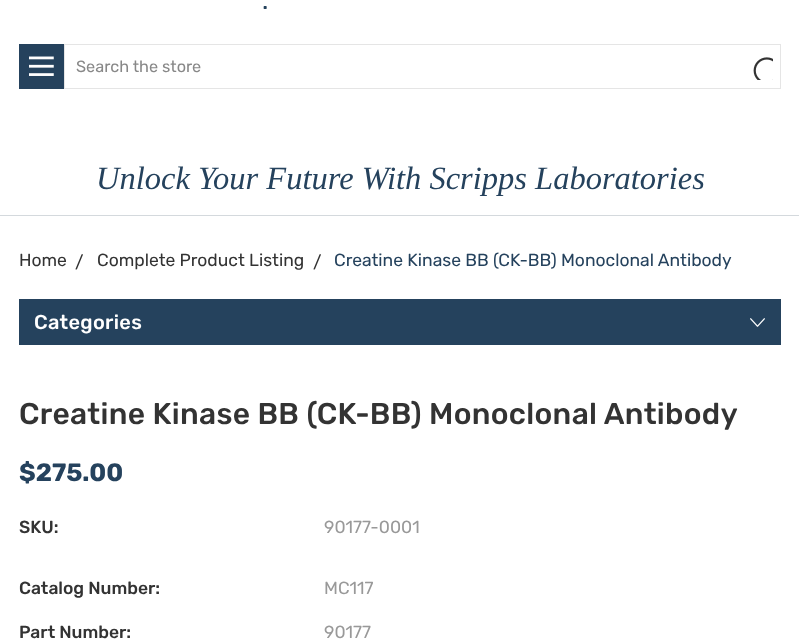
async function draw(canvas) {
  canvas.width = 799
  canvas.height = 642
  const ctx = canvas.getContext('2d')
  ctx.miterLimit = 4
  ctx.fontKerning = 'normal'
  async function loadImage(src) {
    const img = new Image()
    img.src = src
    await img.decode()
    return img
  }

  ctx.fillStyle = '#fff'
  ctx.fillRect(0, 0, 799, 642)
  ctx.font = '25px Rubik'
  ctx.fillStyle = '#25425d'
  ctx.fillText('.', 262, 9)
  ctx.fillRect(19, 44, 45, 45)
  ctx.drawImage(await loadImage('image0.png'), 29, 56, 25, 20)
  ctx.strokeStyle = '#e5e5e5'
  ctx.strokeRect(64.5, 44.5, 716, 44)
  ctx.font = '16.25px Rubik'
  ctx.fillStyle = '#888'
  ctx.fillText('Search the store', 76, 72)
  ctx.drawImage(await loadImage('image1.png'), 753, 57, 20, 23)
  ctx.fillStyle = '#d4d9dd'
  ctx.fillRect(0, 215, 799, 1)
  ctx.font = 'italic 32.5px Liberation Serif'
  ctx.fillStyle = '#25425d'
  ctx.fillText('Unlock Your Future With Scripps Laboratories', 96, 189)
  ctx.font = '17.5px Rubik'
  ctx.fillStyle = '#333'
  ctx.fillText('Home', 19, 266)
  ctx.fillText('/', 75, 268)
  ctx.fillText('Complete Product Listing', 97, 266)
  ctx.fillText('/', 313, 268)
  ctx.fillStyle = '#25425d'
  ctx.fillText('Creatine Kinase BB (CK-BB) Monoclonal Antibody', 334, 266)
  ctx.fillRect(19, 299, 762, 46)
  ctx.letterSpacing = '0.3px'
  ctx.font = '500 20px Rubik'
  ctx.fillStyle = '#fff'
  ctx.fillText('Categories', 34, 329)
  ctx.drawImage(await loadImage('image2.png'), 750, 318, 15, 9)
  ctx.font = '500 30px Rubik'
  ctx.fillStyle = '#333'
  ctx.fillText('Creatine Kinase BB (CK-BB) Monoclonal Antibody', 19, 424)
  ctx.letterSpacing = '0px'
  ctx.font = 'bold 25px Rubik'
  ctx.fillStyle = '#25425d'
  ctx.fillText('$275.00', 19, 481)
  ctx.font = '500 17.5px Rubik'
  ctx.fillStyle = '#333'
  ctx.fillText('SKU:', 19, 533)
  ctx.font = '17.5px Rubik'
  ctx.fillStyle = '#999'
  ctx.fillText('90177-0001', 324, 533)
  ctx.font = '500 17.5px Rubik'
  ctx.fillStyle = '#333'
  ctx.fillText('Catalog Number:', 19, 594)
  ctx.font = '17.5px Rubik'
  ctx.fillStyle = '#999'
  ctx.fillText('MC117', 324, 594)
  ctx.font = '500 17.5px Rubik'
  ctx.fillStyle = '#333'
  ctx.fillText('Part Number:', 19, 638)
  ctx.font = '17.5px Rubik'
  ctx.fillStyle = '#999'
  ctx.fillText('90177', 324, 638)
}

draw(document.querySelector('canvas'))
